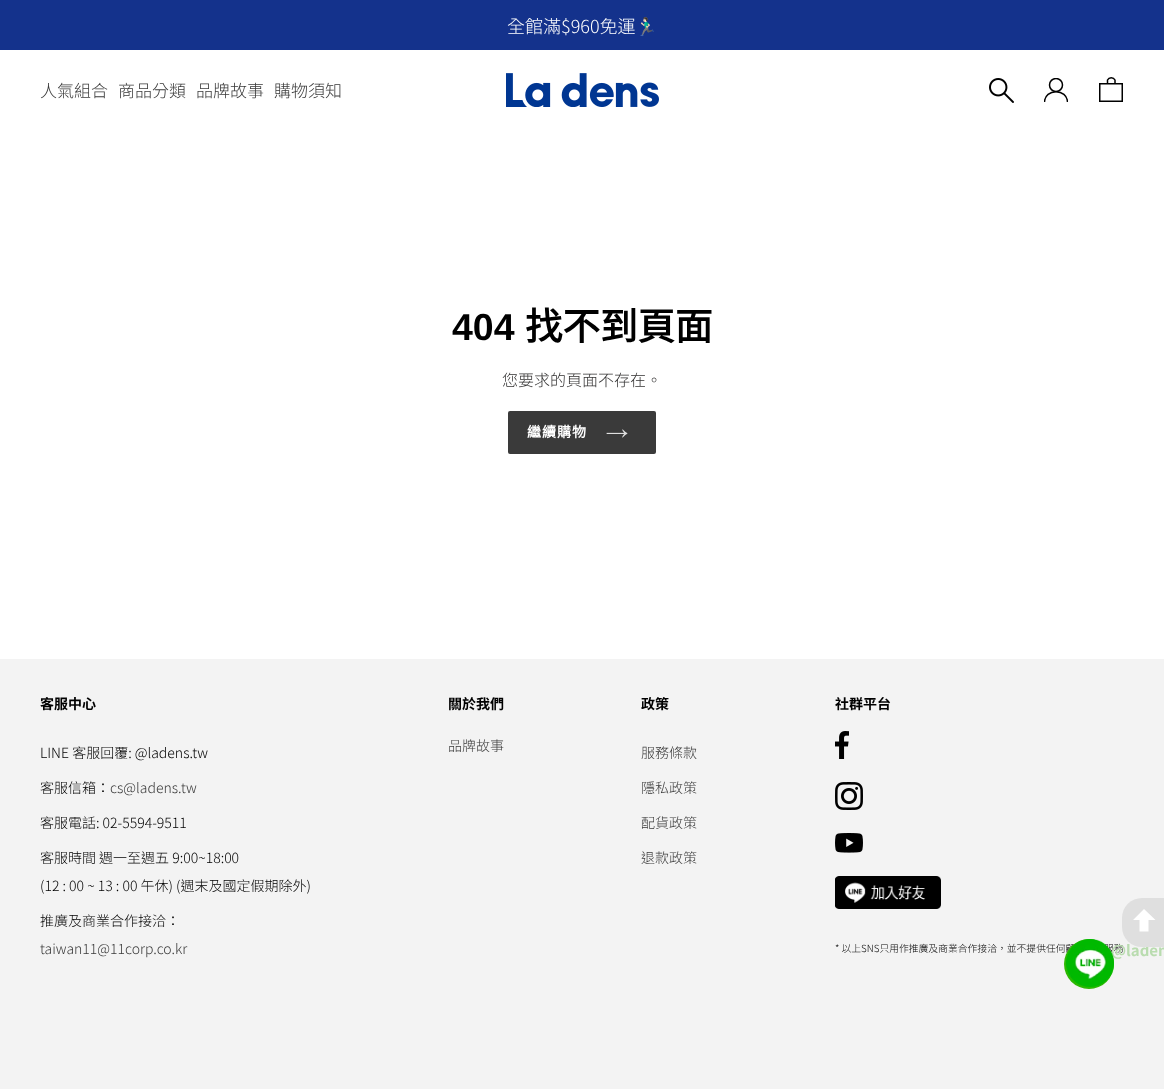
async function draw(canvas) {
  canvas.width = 1164
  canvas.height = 1089
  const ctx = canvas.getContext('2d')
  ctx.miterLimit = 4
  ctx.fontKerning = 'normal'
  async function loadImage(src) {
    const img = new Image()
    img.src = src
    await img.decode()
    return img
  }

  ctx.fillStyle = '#fff'
  ctx.fillRect(0, 0, 1164, 1089)
  ctx.fillStyle = '#14328c'
  ctx.fillRect(0, 0, 1164, 50)
  ctx.font = '300 18px Noto Sans KR'
  ctx.fillStyle = '#fff'
  ctx.fillText('全館滿$960免運', 507, 33)
  ctx.font = '18px Noto Color Emoji'
  ctx.fillText('🏃🏻‍♂️', 635, 33)
  ctx.font = '300 17px Noto Sans TC'
  ctx.fillStyle = '#3a3a3a'
  ctx.fillText('人氣組合', 40, 97)
  ctx.fillText('商品分類', 118, 97)
  ctx.fillText('品牌故事', 196, 97)
  ctx.fillText('購物須知', 274, 97)
  ctx.drawImage(await loadImage('image0.png'), 506, 73, 153, 34)
  ctx.drawImage(await loadImage('image1.png'), 989, 78, 25, 25)
  ctx.save()
  ctx.beginPath()
  ctx.rect(1044, 78, 24, 24)
  ctx.clip()
  ctx.beginPath()
  ctx.arc(1056, 85, 6.5, 0, 2 * Math.PI)
  ctx.strokeStyle = '#000'
  ctx.lineWidth = 1.5
  ctx.stroke()
  ctx.beginPath()
  ctx.moveTo(1044.5, 102.5)
  ctx.bezierCurveTo(1044.5, 88, 1067.5, 88, 1067.5, 102.5)
  ctx.stroke()
  ctx.restore()
  ctx.strokeStyle = '#000'
  ctx.lineWidth = 1.5
  ctx.strokeRect(1099.75, 83.75, 22.5, 17.5)
  ctx.beginPath()
  ctx.moveTo(1115, 83.5)
  ctx.lineTo(1115, 80)
  ctx.bezierCurveTo(1113.5, 77, 1109, 77, 1107.5, 80)
  ctx.lineTo(1107.5, 83.5)
  ctx.stroke()
  ctx.font = 'bold 37.5px Liberation Sans'
  ctx.fillStyle = '#000'
  ctx.fillText('404', 452, 340)
  ctx.font = 'bold 37.5px Noto Sans CJK TC'
  ctx.fillText('找不到頁面', 525, 340)
  ctx.font = '300 16px Noto Sans TC'
  ctx.fillStyle = '#333232'
  ctx.fillText('您要求的頁面不存在。', 502, 386)
  ctx.fillStyle = '#3a3a3a'
  ctx.beginPath()
  ctx.roundRect(508, 411, 148, 43, 2)
  ctx.fill()
  ctx.letterSpacing = '1px'
  ctx.font = 'bold 14px Noto Sans CJK TC'
  ctx.fillStyle = '#fff'
  ctx.fillText('繼續購物', 527, 437)
  ctx.drawImage(await loadImage('image2.png'), 606, 429, 22, 9)
  ctx.fillStyle = '#f3f3f3'
  ctx.fillRect(0, 659, 1164, 430)
  ctx.letterSpacing = '0px'
  ctx.font = 'bold 14px Noto Sans TC'
  ctx.fillStyle = '#000'
  ctx.fillText('客服中心', 40, 709)
  ctx.font = '300 14px Noto Sans TC'
  ctx.fillText('LINE 客服回覆: @ladens.tw', 40, 758)
  ctx.fillText('客服信箱：', 40, 793)
  ctx.fillStyle = '#3a3a3a'
  ctx.fillText('cs@ladens.tw', 110, 793)
  ctx.fillStyle = '#000'
  ctx.fillText('客服電話: 02-5594-9511', 40, 828)
  ctx.fillText('客服時間 週一至週五 9:00~18:00', 40, 863)
  ctx.fillText('(12 : 00 ~ 13 : 00 午休) (週末及國定假期除外)', 40, 891)
  ctx.fillText('推廣及商業合作接洽：', 40, 926)
  ctx.fillStyle = '#3a3a3a'
  ctx.fillText('taiwan11@11corp.co.kr', 40, 954)
  ctx.font = 'bold 14px Noto Sans TC'
  ctx.fillStyle = '#000'
  ctx.fillText('關於我們', 448, 709)
  ctx.font = '300 14px Noto Sans TC'
  ctx.fillStyle = '#3a3a3a'
  ctx.fillText('品牌故事', 448, 751)
  ctx.font = 'bold 14px Noto Sans TC'
  ctx.fillStyle = '#000'
  ctx.fillText('政策', 641, 709)
  ctx.font = '300 14px Noto Sans TC'
  ctx.fillStyle = '#3a3a3a'
  ctx.fillText('服務條款', 641, 758)
  ctx.fillText('隱私政策', 641, 793)
  ctx.fillText('配貨政策', 641, 828)
  ctx.fillText('退款政策', 641, 863)
  ctx.font = 'bold 14px Noto Sans TC'
  ctx.fillStyle = '#000'
  ctx.fillText('社群平台', 835, 709)
  ctx.drawImage(await loadImage('image3.png'), 835, 731, 14, 28)
  ctx.drawImage(await loadImage('image4.png'), 835, 782, 28, 28)
  ctx.drawImage(await loadImage('image5.png'), 835, 833, 28, 20)
  ctx.drawImage(await loadImage('image6.png'), 835, 876, 106, 33)
  ctx.font = '300 9.8px Noto Sans TC'
  ctx.fillText('* 以上SNS只用作推廣及商業合作接洽，並不提供任何顧', 835, 952)
  ctx.fillText('服務', 1104, 952)
  ctx.fillStyle = '#2bb902'
  ctx.beginPath()
  ctx.arc(1089, 964, 25, 0, 2 * Math.PI)
  ctx.fill()
  ctx.font = 'bold 15px Noto Sans TC'
  ctx.fillStyle = '#b9dcaf'
  ctx.fillText('@laden', 1111, 956)
  ctx.fillStyle = '#dfdfdf'
  ctx.beginPath()
  ctx.roundRect(1122, 898, 42, 49, [20, 0, 0, 20])
  ctx.fill()
  ctx.fillStyle = '#fff'
  ctx.beginPath()
  ctx.moveTo(1144, 909)
  ctx.lineTo(1133, 920)
  ctx.lineTo(1139.5, 920)
  ctx.lineTo(1139.5, 931.5)
  ctx.lineTo(1148.5, 931.5)
  ctx.lineTo(1148.5, 920)
  ctx.lineTo(1155.5, 920)
  ctx.closePath()
  ctx.fill()
  ctx.drawImage(await loadImage('image7.png'), 1066, 939, 48, 48)
}

draw(document.querySelector('canvas'))
